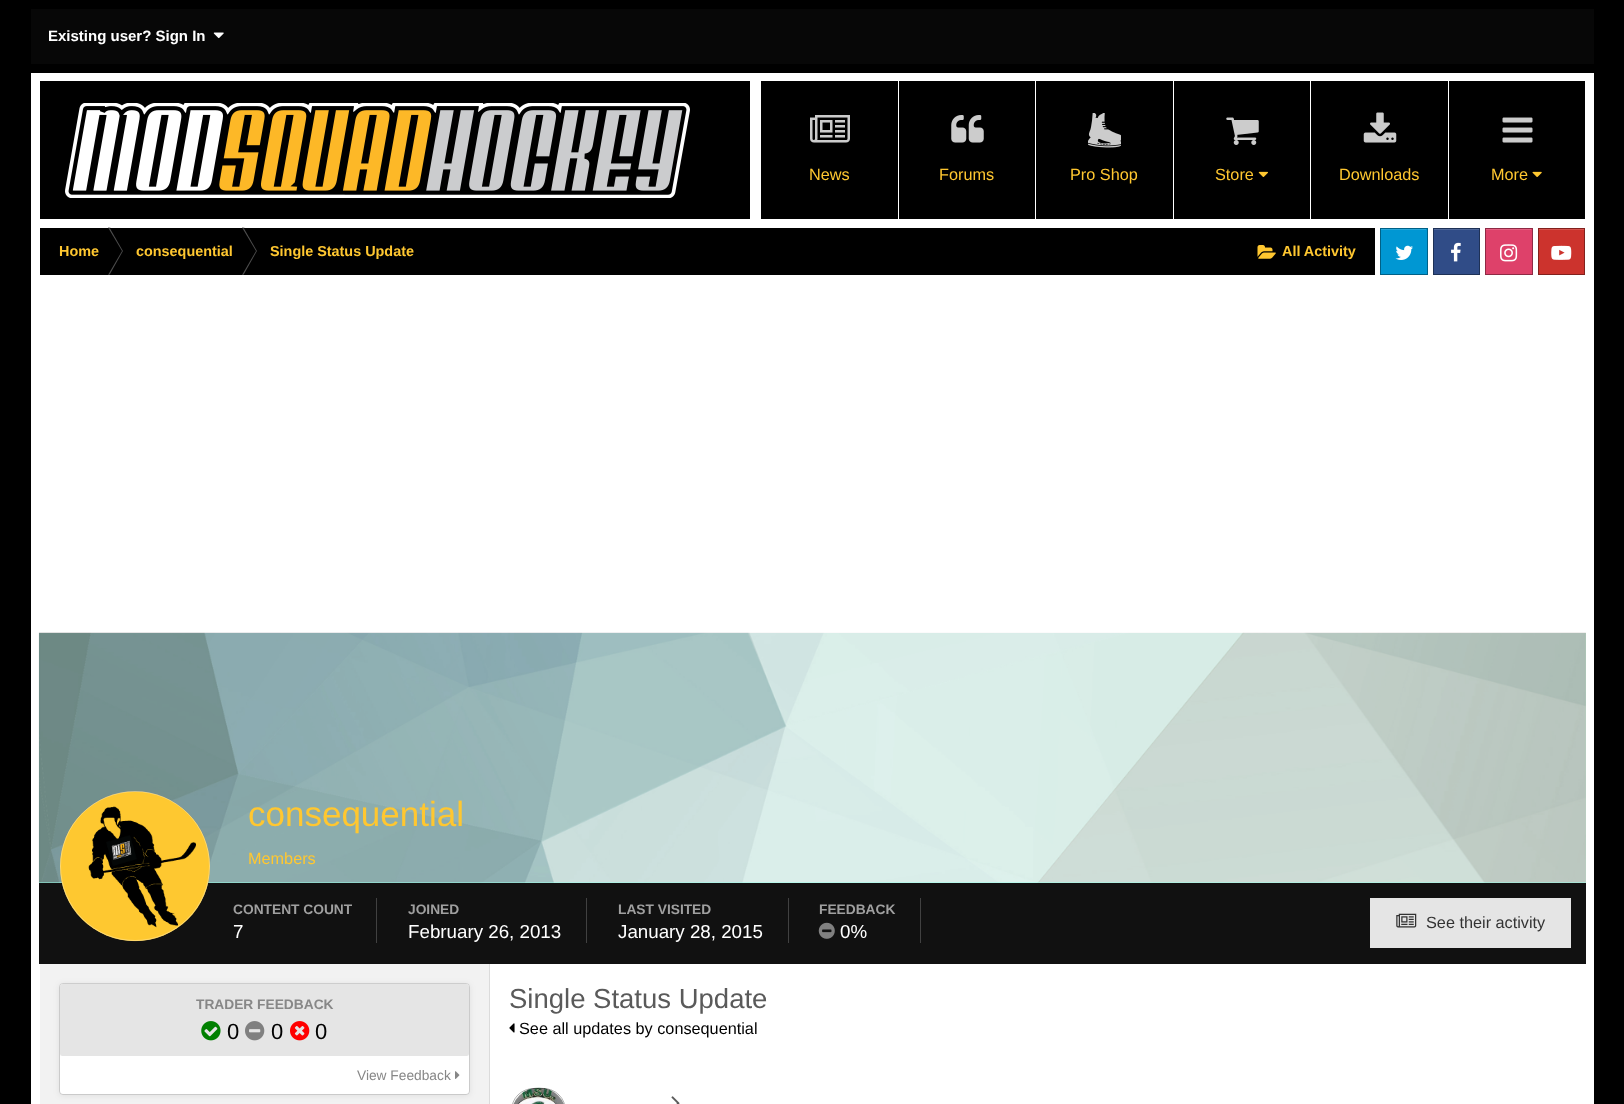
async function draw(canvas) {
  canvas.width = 1624
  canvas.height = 1104
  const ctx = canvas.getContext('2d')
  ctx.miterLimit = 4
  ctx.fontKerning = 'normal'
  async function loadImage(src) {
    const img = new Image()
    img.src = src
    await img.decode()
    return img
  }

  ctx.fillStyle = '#000'
  ctx.fillRect(0, 0, 1624, 1104)
  ctx.fillStyle = '#070707'
  ctx.fillRect(31, 9, 1563, 55)
  ctx.font = 'bold 15px Liberation Sans'
  ctx.fillStyle = '#fff'
  ctx.fillText('Existing user? Sign In', 48, 41)
  ctx.drawImage(await loadImage('image0.png'), 213, 32, 11, 7)
  ctx.fillRect(31, 73, 1563, 1031)
  ctx.fillStyle = '#000'
  ctx.fillRect(40, 81, 1545, 138)
  ctx.drawImage(await loadImage('image1.png'), 65, 103, 625, 95)
  ctx.fillStyle = '#fff'
  ctx.fillRect(750, 81, 11, 138)
  ctx.drawImage(await loadImage('image2.png'), 810, 115, 40, 28)
  ctx.font = '16.25px Liberation Sans'
  ctx.fillStyle = '#ffc730'
  ctx.fillText('News', 809, 180)
  ctx.fillStyle = '#fff'
  ctx.fillRect(898, 81, 1, 138)
  ctx.drawImage(await loadImage('image3.png'), 951, 115, 33, 28)
  ctx.fillStyle = '#ffc730'
  ctx.fillText('Forums', 939, 180)
  ctx.fillStyle = '#fff'
  ctx.fillRect(1035, 81, 1, 138)
  ctx.drawImage(await loadImage('image4.png'), 1088, 113, 33, 35)
  ctx.fillStyle = '#ffc730'
  ctx.fillText('Pro Shop', 1070, 180)
  ctx.fillStyle = '#fff'
  ctx.fillRect(1173, 81, 1, 138)
  ctx.drawImage(await loadImage('image5.png'), 1226, 117, 33, 28)
  ctx.fillStyle = '#ffc730'
  ctx.fillText('Store', 1215, 180)
  ctx.drawImage(await loadImage('image6.png'), 1258, 171, 10, 6)
  ctx.fillStyle = '#fff'
  ctx.fillRect(1310, 81, 1, 138)
  ctx.drawImage(await loadImage('image7.png'), 1363, 112, 34, 31)
  ctx.fillStyle = '#ffc730'
  ctx.fillText('Downloads', 1339, 180)
  ctx.fillStyle = '#fff'
  ctx.fillRect(1448, 81, 1, 138)
  ctx.drawImage(await loadImage('image8.png'), 1502, 117, 31, 26)
  ctx.fillStyle = '#ffc730'
  ctx.fillText('More', 1491, 180)
  ctx.drawImage(await loadImage('image9.png'), 1532, 171, 10, 6)
  ctx.fillStyle = '#000'
  ctx.fillRect(40, 228, 1335, 47)
  ctx.fillStyle = '#4d4d4d'
  ctx.beginPath()
  ctx.moveTo(108, 227.5)
  ctx.lineTo(109.5, 227.5)
  ctx.lineTo(123, 251)
  ctx.lineTo(122, 251)
  ctx.closePath()
  ctx.fill()
  ctx.fillStyle = '#0000004d'
  ctx.beginPath()
  ctx.moveTo(109.5, 227.5)
  ctx.lineTo(110.5, 227.5)
  ctx.lineTo(124.5, 251)
  ctx.lineTo(123, 251)
  ctx.closePath()
  ctx.fill()
  ctx.fillStyle = '#4d4d4d'
  ctx.beginPath()
  ctx.moveTo(122, 251)
  ctx.lineTo(123, 251)
  ctx.lineTo(109.5, 275)
  ctx.lineTo(108, 275)
  ctx.closePath()
  ctx.fill()
  ctx.fillStyle = '#0000004d'
  ctx.beginPath()
  ctx.moveTo(123, 251)
  ctx.lineTo(124.5, 251)
  ctx.lineTo(110.5, 275)
  ctx.lineTo(109.5, 275)
  ctx.closePath()
  ctx.fill()
  ctx.fillStyle = '#4d4d4d'
  ctx.beginPath()
  ctx.moveTo(242, 227.5)
  ctx.lineTo(243.5, 227.5)
  ctx.lineTo(257, 251)
  ctx.lineTo(256, 251)
  ctx.closePath()
  ctx.fill()
  ctx.fillStyle = '#0000004d'
  ctx.beginPath()
  ctx.moveTo(243.5, 227.5)
  ctx.lineTo(244.5, 227.5)
  ctx.lineTo(258.5, 251)
  ctx.lineTo(257, 251)
  ctx.closePath()
  ctx.fill()
  ctx.fillStyle = '#4d4d4d'
  ctx.beginPath()
  ctx.moveTo(256, 251)
  ctx.lineTo(257, 251)
  ctx.lineTo(243.5, 275)
  ctx.lineTo(242, 275)
  ctx.closePath()
  ctx.fill()
  ctx.fillStyle = '#0000004d'
  ctx.beginPath()
  ctx.moveTo(257, 251)
  ctx.lineTo(258.5, 251)
  ctx.lineTo(244.5, 275)
  ctx.lineTo(243.5, 275)
  ctx.closePath()
  ctx.fill()
  ctx.drawImage(await loadImage('image10.png'), 1257, 245, 19, 14)
  ctx.strokeStyle = '#00000040'
  ctx.strokeRect(40.5, 228.5, 1334, 46)
  ctx.font = 'bold 14.4px Liberation Sans'
  ctx.fillStyle = '#ffc730'
  ctx.fillText('Home', 59, 256)
  ctx.fillText('consequential', 136, 256)
  ctx.fillText('Single Status Update', 270, 256)
  ctx.fillText('All Activity', 1282, 256)
  ctx.fillStyle = '#0097d3'
  ctx.fillRect(1381, 229, 46, 45)
  ctx.fillStyle = '#26a7da'
  ctx.fillRect(1381, 229, 45, 1)
  ctx.drawImage(await loadImage('image11.png'), 1395, 245, 18, 15)
  ctx.strokeStyle = '#006187'
  ctx.strokeRect(1380.5, 228.5, 47, 46)
  ctx.fillStyle = '#304c87'
  ctx.fillRect(1434, 230, 45, 44)
  ctx.fillStyle = '#4f6799'
  ctx.fillRect(1434, 229, 45, 1)
  ctx.drawImage(await loadImage('image12.png'), 1451, 242, 10, 20)
  ctx.strokeStyle = '#1e3156'
  ctx.strokeRect(1433.5, 228.5, 46, 46)
  ctx.fillStyle = '#de416a'
  ctx.fillRect(1486, 229, 46, 45)
  ctx.fillStyle = '#e35e80'
  ctx.fillRect(1486, 229, 45, 1)
  ctx.drawImage(await loadImage('image13.png'), 1500, 244, 18, 18)
  ctx.strokeStyle = '#8e2a44'
  ctx.strokeRect(1485.5, 228.5, 47, 46)
  ctx.fillStyle = '#cc332d'
  ctx.fillRect(1539, 230, 45, 44)
  ctx.fillStyle = '#d4524d'
  ctx.fillRect(1539, 229, 45, 1)
  ctx.drawImage(await loadImage('image14.png'), 1551, 245, 21, 15)
  ctx.strokeStyle = '#82211d'
  ctx.strokeRect(1538.5, 228.5, 46, 46)
  ctx.fillStyle = '#99ffeb'
  ctx.fillRect(39, 633, 1547, 250)
  ctx.drawImage(await loadImage('image15.png'), 38, 632, 1548, 251)
  ctx.fillStyle = '#111'
  ctx.fillRect(39, 883, 1547, 81)
  ctx.fillStyle = '#55728b'
  ctx.beginPath()
  ctx.arc(135, 866, 75, 0, 2 * Math.PI)
  ctx.fill()
  ctx.fillStyle = '#ffffff1f'
  ctx.beginPath()
  ctx.arc(135, 866, 75, 0, 2 * Math.PI)
  ctx.fill()
  ctx.drawImage(await loadImage('image16.png'), 60, 791, 150, 151)
  ctx.beginPath()
  ctx.arc(135, 866, 74.5, 0, 2 * Math.PI)
  ctx.strokeStyle = '#ffffff4d'
  ctx.stroke()
  ctx.font = '35px Liberation Sans'
  ctx.fillStyle = '#ffc730'
  ctx.fillText('consequential', 248, 826)
  ctx.font = '16.25px Liberation Sans'
  ctx.fillText('Members', 248, 864)
  ctx.fillStyle = '#414141'
  ctx.fillRect(376, 898, 1, 45)
  ctx.font = 'bold 13.75px Liberation Sans'
  ctx.fillStyle = '#a0a0a0'
  ctx.fillText('CONTENT COUNT', 233, 914)
  ctx.font = '18.75px Liberation Sans'
  ctx.fillStyle = '#fff'
  ctx.fillText('7', 233, 938)
  ctx.fillStyle = '#414141'
  ctx.fillRect(586, 898, 1, 45)
  ctx.font = 'bold 13.75px Liberation Sans'
  ctx.fillStyle = '#a0a0a0'
  ctx.fillText('JOINED', 408, 914)
  ctx.font = '18.75px Liberation Sans'
  ctx.fillStyle = '#fff'
  ctx.fillText('February 26, 2013', 408, 938)
  ctx.fillStyle = '#414141'
  ctx.fillRect(788, 898, 1, 45)
  ctx.font = 'bold 13.75px Liberation Sans'
  ctx.fillStyle = '#a0a0a0'
  ctx.fillText('LAST VISITED', 618, 914)
  ctx.font = '18.75px Liberation Sans'
  ctx.fillStyle = '#fff'
  ctx.fillText('January 28, 2015', 618, 938)
  ctx.fillStyle = '#414141'
  ctx.fillRect(920, 898, 1, 45)
  ctx.font = 'bold 13.75px Liberation Sans'
  ctx.fillStyle = '#a0a0a0'
  ctx.fillText('FEEDBACK', 819, 914)
  ctx.drawImage(await loadImage('image17.png'), 818, 922, 17, 17)
  ctx.font = '18.75px Liberation Sans'
  ctx.fillStyle = '#fff'
  ctx.fillText('0%', 840, 938)
  ctx.fillStyle = '#e5e5e5'
  ctx.fillRect(1370, 898, 201, 50)
  ctx.drawImage(await loadImage('image18.png'), 1396, 913, 21, 15)
  ctx.font = '16.25px Liberation Sans'
  ctx.fillStyle = '#333'
  ctx.fillText('See their activity', 1426, 928)
  ctx.fillStyle = '#f2f2f2'
  ctx.fillRect(40, 964, 449, 140)
  ctx.fillStyle = '#dbdbdb'
  ctx.fillRect(489, 964, 1, 140)
  ctx.fillStyle = '#00000012'
  ctx.filter = 'blur(3px)'
  ctx.beginPath()
  ctx.roundRect(59, 984, 411, 112, 4)
  ctx.fill()
  ctx.filter = 'none'
  ctx.fillStyle = '#fff'
  ctx.beginPath()
  ctx.roundRect(60, 984, 409, 110, 2.5)
  ctx.fill()
  ctx.beginPath()
  ctx.roundRect(59.5, 983.5, 410, 111, 3.5)
  ctx.strokeStyle = '#5a5a5a33'
  ctx.stroke()
  ctx.fillStyle = '#e5e5e5'
  ctx.beginPath()
  ctx.roundRect(60, 984, 409, 72, 2.5)
  ctx.fill()
  ctx.font = 'bold 13.75px Liberation Sans'
  ctx.fillStyle = '#878787'
  ctx.fillText('TRADER FEEDBACK', 196, 1009)
  ctx.drawImage(await loadImage('image19.png'), 201, 1021, 20, 20)
  ctx.font = '22px Liberation Sans'
  ctx.fillStyle = '#000'
  ctx.fillText('0', 227, 1039)
  ctx.drawImage(await loadImage('image20.png'), 245, 1021, 20, 20)
  ctx.fillText('0', 271, 1039)
  ctx.drawImage(await loadImage('image21.png'), 290, 1021, 20, 20)
  ctx.fillText('0', 315, 1039)
  ctx.font = '13.75px Liberation Sans'
  ctx.fillStyle = '#878787'
  ctx.fillText('View Feedback', 357, 1080)
  ctx.drawImage(await loadImage('image22.png'), 455, 1071, 5, 8)
  ctx.font = '27.5px Liberation Sans'
  ctx.fillStyle = '#5a5a5a'
  ctx.fillText('Single Status Update', 509, 1008)
  ctx.drawImage(await loadImage('image23.png'), 509, 1023, 6, 10)
  ctx.font = '16.25px Liberation Sans'
  ctx.fillStyle = '#000'
  ctx.fillText('See all updates by consequential', 519, 1034)
  ctx.drawImage(await loadImage('image24.png'), 513, 1087, 51, 17)
  ctx.beginPath()
  ctx.roundRect(511.5, 1088.5, 54, 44, 27)
  ctx.strokeStyle = '#0000004d'
  ctx.stroke()
  ctx.drawImage(await loadImage('image25.png'), 671, 1096, 9, 8)
}

draw(document.querySelector('canvas'))
